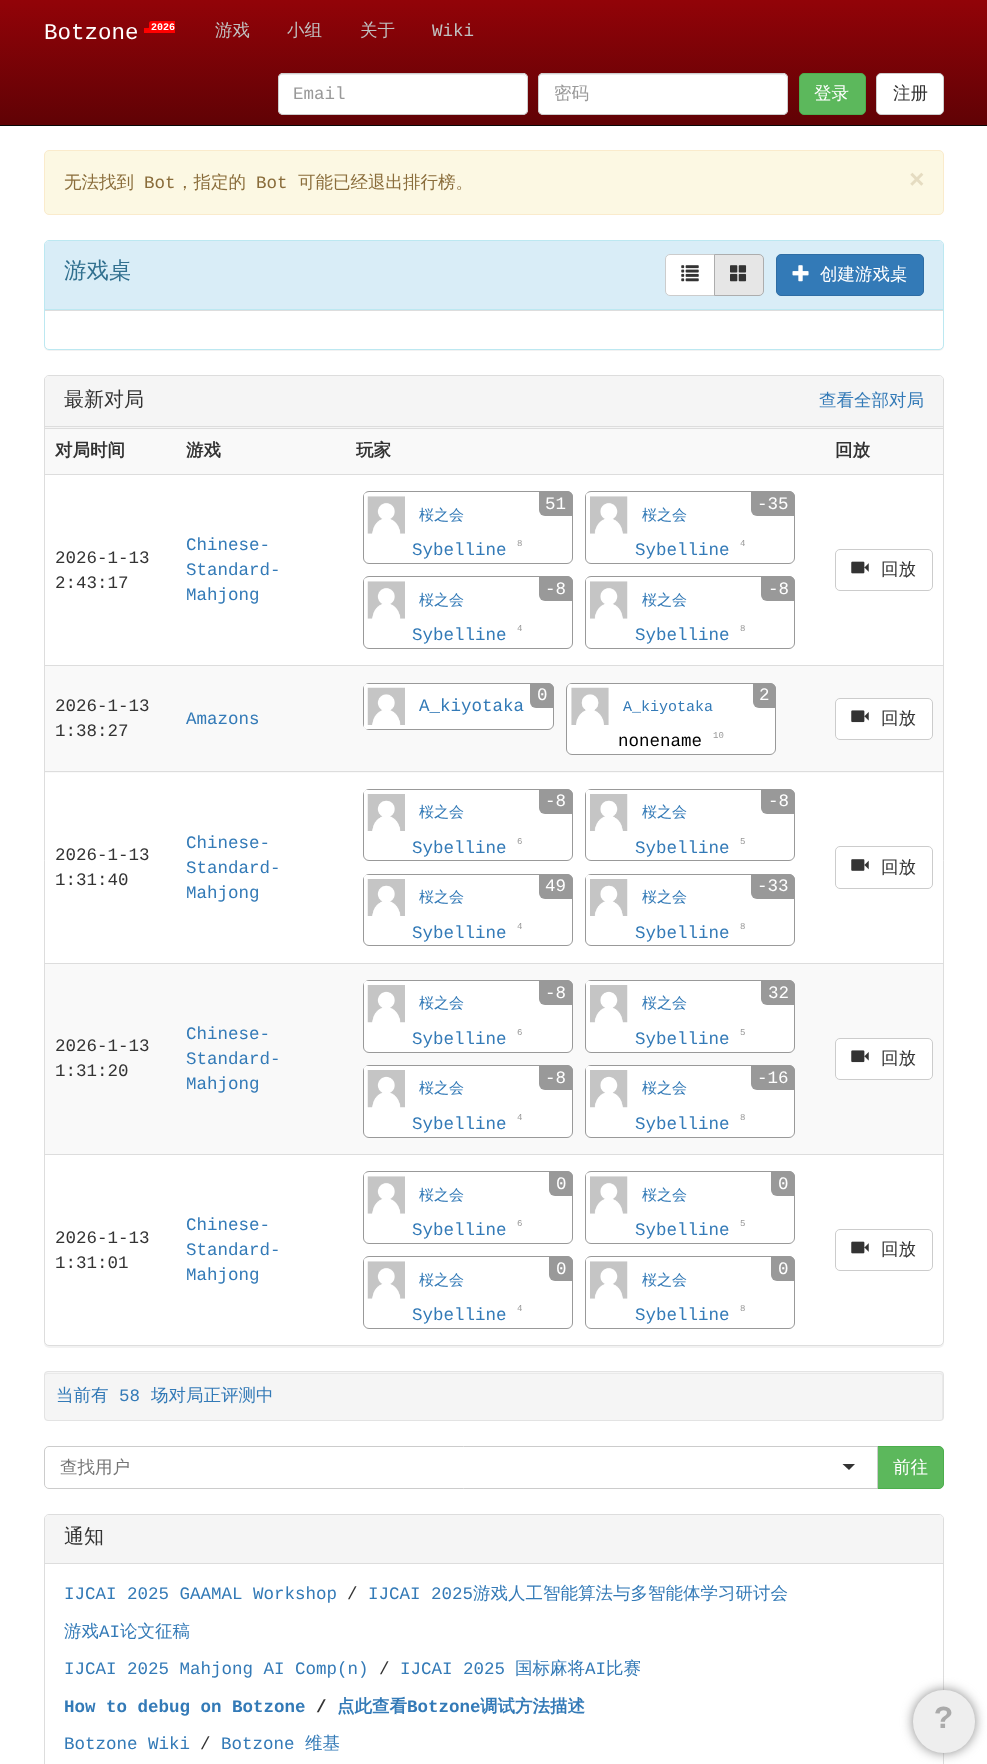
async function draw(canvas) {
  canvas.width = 987
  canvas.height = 1764
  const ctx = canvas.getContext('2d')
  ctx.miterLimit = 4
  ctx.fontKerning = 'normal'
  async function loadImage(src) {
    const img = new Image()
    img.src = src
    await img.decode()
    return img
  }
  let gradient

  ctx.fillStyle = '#fff'
  ctx.fillRect(0, 0, 987, 1764)
  gradient = ctx.createLinearGradient(494, 0, 494, 125)
  gradient.addColorStop(0, '#920308')
  gradient.addColorStop(1, '#600205')
  ctx.fillStyle = gradient
  ctx.fillRect(0, 0, 987, 125)
  ctx.fillStyle = '#080808'
  ctx.fillRect(0, 125, 987, 1)
  ctx.font = '22.5px Liberation Mono'
  ctx.fillStyle = '#fff'
  ctx.fillText('Botzone', 44, 39)
  ctx.fillStyle = '#f00'
  ctx.beginPath()
  ctx.roundRect(149, 21, 26, 12, [2.5, 0, 0, 0])
  ctx.fill()
  ctx.beginPath()
  ctx.roundRect(144, 28, 7, 5, [0, 2.5, 2.5, 0])
  ctx.fill()
  ctx.beginPath()
  ctx.moveTo(149, 27.5)
  ctx.lineTo(149, 32.5)
  ctx.lineTo(146, 30)
  ctx.closePath()
  ctx.fill()
  ctx.font = 'bold 10px Liberation Mono'
  ctx.fillStyle = '#fff'
  ctx.fillText('2026', 151, 30)
  ctx.font = '500 17.5px WenQuanYi Zen Hei'
  ctx.fillStyle = '#c1c1c1'
  ctx.fillText('游戏', 215, 36)
  ctx.fillText('小组', 287, 36)
  ctx.fillText('关于', 360, 36)
  ctx.font = '17.5px Liberation Mono'
  ctx.fillText('Wiki', 432, 36)
  ctx.fillStyle = '#fff'
  ctx.beginPath()
  ctx.roundRect(278, 73, 250, 42, 5)
  ctx.fill()
  ctx.fillStyle = '#ececec'
  ctx.beginPath()
  ctx.moveTo(282, 75)
  ctx.lineTo(522, 75)
  ctx.bezierCurveTo(525, 75, 526, 77, 526, 79)
  ctx.lineTo(526, 78)
  ctx.bezierCurveTo(526, 76, 524, 74, 522, 74)
  ctx.lineTo(283, 74)
  ctx.bezierCurveTo(281, 74, 279, 76, 279, 78)
  ctx.lineTo(279, 79)
  ctx.bezierCurveTo(279, 77, 280, 75, 282, 75)
  ctx.closePath()
  ctx.fill()
  ctx.beginPath()
  ctx.roundRect(278.5, 73.5, 249, 41, 4.5)
  ctx.strokeStyle = '#ccc'
  ctx.stroke()
  ctx.fillStyle = '#999'
  ctx.fillText('Email', 293, 99)
  ctx.fillStyle = '#fff'
  ctx.beginPath()
  ctx.roundRect(538, 73, 250, 42, 5)
  ctx.fill()
  ctx.fillStyle = '#ececec'
  ctx.beginPath()
  ctx.moveTo(542, 75)
  ctx.lineTo(782, 75)
  ctx.bezierCurveTo(785, 75, 786, 77, 786, 79)
  ctx.lineTo(786, 78)
  ctx.bezierCurveTo(786, 76, 784, 74, 782, 74)
  ctx.lineTo(543, 74)
  ctx.bezierCurveTo(541, 74, 539, 76, 539, 78)
  ctx.lineTo(539, 79)
  ctx.bezierCurveTo(539, 77, 540, 75, 542, 75)
  ctx.closePath()
  ctx.fill()
  ctx.beginPath()
  ctx.roundRect(538.5, 73.5, 249, 41, 4.5)
  ctx.stroke()
  ctx.font = '500 17.5px WenQuanYi Zen Hei'
  ctx.fillStyle = '#999'
  ctx.fillText('密码', 554, 99)
  ctx.fillStyle = '#5cb85c'
  ctx.beginPath()
  ctx.roundRect(799.5, 73.5, 66, 41, 4.5)
  ctx.fill()
  ctx.strokeStyle = '#4cae4c'
  ctx.stroke()
  ctx.fillStyle = '#fff'
  ctx.fillText('登录', 814, 99)
  ctx.beginPath()
  ctx.roundRect(876.5, 73.5, 67, 41, 4.5)
  ctx.fill()
  ctx.strokeStyle = '#ccc'
  ctx.stroke()
  ctx.fillStyle = '#333'
  ctx.fillText('注册', 893, 99)
  ctx.fillStyle = '#fcf8e3'
  ctx.beginPath()
  ctx.roundRect(44.5, 150.5, 899, 64, 4.5)
  ctx.fill()
  ctx.strokeStyle = '#faebcc'
  ctx.stroke()
  ctx.fillStyle = '#8a6d3b'
  ctx.fillText('无法找到', 64, 188)
  ctx.font = '17.5px Liberation Mono'
  ctx.fillText('Bot', 144, 188)
  ctx.font = '500 17.5px WenQuanYi Zen Hei'
  ctx.fillText('，指定的', 176, 188)
  ctx.font = '17.5px Liberation Mono'
  ctx.fillText('Bot', 256, 188)
  ctx.font = '500 17.5px WenQuanYi Zen Hei'
  ctx.fillText('可能已经退出排行榜。', 298, 188)
  ctx.font = 'bold 26px Liberation Mono'
  ctx.fillStyle = '#e5dcc1'
  ctx.fillText('×', 909, 188)
  ctx.fillStyle = '#0000000d'
  ctx.filter = 'blur(0.5px)'
  ctx.beginPath()
  ctx.roundRect(44, 241, 900, 110, 5)
  ctx.fill()
  ctx.filter = 'none'
  ctx.fillStyle = '#fff'
  ctx.beginPath()
  ctx.roundRect(44.5, 240.5, 899, 109, 4.5)
  ctx.fill()
  ctx.strokeStyle = '#bce8f1'
  ctx.stroke()
  ctx.fillStyle = '#d9edf7'
  ctx.beginPath()
  ctx.roundRect(45, 241, 898, 69, [4, 4, 0, 0])
  ctx.fill()
  ctx.fillStyle = '#bce8f1'
  ctx.fillRect(45, 309, 898, 1)
  ctx.font = '500 22.5px WenQuanYi Zen Hei'
  ctx.fillStyle = '#31708f'
  ctx.fillText('游戏桌', 64, 278)
  ctx.fillStyle = '#fff'
  ctx.beginPath()
  ctx.roundRect(665.5, 254.5, 49, 41, [4.5, 0, 0, 4.5])
  ctx.fill()
  ctx.strokeStyle = '#ccc'
  ctx.stroke()
  ctx.drawImage(await loadImage('image0.png'), 681, 265, 18, 17)
  ctx.fillStyle = '#e6e6e6'
  ctx.beginPath()
  ctx.roundRect(714.5, 254.5, 49, 41, [0, 4.5, 4.5, 0])
  ctx.fill()
  ctx.strokeStyle = '#adadad'
  ctx.stroke()
  ctx.drawImage(await loadImage('image1.png'), 730, 265, 17, 17)
  ctx.fillStyle = '#337ab7'
  ctx.beginPath()
  ctx.roundRect(776.5, 254.5, 147, 41, 4.5)
  ctx.fill()
  ctx.strokeStyle = '#2e6da4'
  ctx.stroke()
  ctx.drawImage(await loadImage('image2.png'), 792, 265, 17, 17)
  ctx.font = '500 17.5px WenQuanYi Zen Hei'
  ctx.fillStyle = '#fff'
  ctx.fillText('创建游戏桌', 820, 280)
  ctx.fillStyle = '#ddd'
  ctx.fillRect(45, 310, 898, 1)
  ctx.fillStyle = '#0000000d'
  ctx.filter = 'blur(0.5px)'
  ctx.beginPath()
  ctx.roundRect(44, 376, 900, 972, 5)
  ctx.fill()
  ctx.filter = 'none'
  ctx.fillStyle = '#fff'
  ctx.beginPath()
  ctx.roundRect(44.5, 375.5, 899, 970, 4.5)
  ctx.fill()
  ctx.strokeStyle = '#ddd'
  ctx.stroke()
  ctx.fillStyle = '#f5f5f5'
  ctx.beginPath()
  ctx.roundRect(45, 376, 898, 52, [4, 4, 0, 0])
  ctx.fill()
  ctx.fillStyle = '#ddd'
  ctx.fillRect(45, 426, 898, 1)
  ctx.font = '500 20px WenQuanYi Zen Hei'
  ctx.fillStyle = '#333'
  ctx.fillText('最新对局', 64, 406)
  ctx.font = '500 17.5px WenQuanYi Zen Hei'
  ctx.fillStyle = '#337ab7'
  ctx.fillText('查看全部对局', 819, 406)
  ctx.fillStyle = '#f9f9f9'
  ctx.fillRect(45, 429, 898, 45)
  ctx.font = 'bold 17.5px WenQuanYi Zen Hei'
  ctx.fillStyle = '#333'
  ctx.fillText('对局时间', 55, 456)
  ctx.fillText('游戏', 186, 456)
  ctx.fillText('玩家', 356, 456)
  ctx.fillStyle = '#ddd'
  ctx.fillRect(45, 428, 898, 1)
  ctx.fillStyle = '#333'
  ctx.fillText('回放', 835, 456)
  ctx.font = '17.5px Liberation Mono'
  ctx.fillText('2026-1-13', 55, 563)
  ctx.fillText('2:43:17', 55, 588)
  ctx.fillStyle = '#337ab7'
  ctx.fillText('Chinese-', 186, 550)
  ctx.fillText('Standard-', 186, 575)
  ctx.fillText('Mahjong', 186, 600)
  ctx.beginPath()
  ctx.roundRect(363.5, 491.5, 209, 72, 5.5)
  ctx.strokeStyle = '#999'
  ctx.stroke()
  ctx.fillStyle = '#fff'
  ctx.beginPath()
  ctx.roundRect(364, 493, 45, 45, 2.5)
  ctx.fill()
  ctx.drawImage(await loadImage('image3.png'), 367, 496, 38, 38)
  ctx.fillStyle = '#999'
  ctx.beginPath()
  ctx.roundRect(539, 491, 34, 25, [0, 6, 0, 6])
  ctx.fill()
  ctx.fillStyle = '#fff'
  ctx.fillText('51', 545, 509)
  ctx.font = '500 15px WenQuanYi Zen Hei'
  ctx.fillStyle = '#337ab7'
  ctx.fillText('桜之会', 419, 520)
  ctx.font = '17.5px Liberation Mono'
  ctx.fillText('Sybelline', 412, 555)
  ctx.font = '9px Liberation Mono'
  ctx.fillStyle = '#999'
  ctx.fillText('8', 517, 546)
  ctx.beginPath()
  ctx.roundRect(585.5, 491.5, 209, 72, 5.5)
  ctx.stroke()
  ctx.fillStyle = '#fff'
  ctx.beginPath()
  ctx.roundRect(586, 493, 45, 45, 2.5)
  ctx.fill()
  ctx.drawImage(await loadImage('image4.png'), 590, 496, 38, 38)
  ctx.fillStyle = '#999'
  ctx.beginPath()
  ctx.roundRect(751, 491, 44, 25, [0, 6, 0, 6])
  ctx.fill()
  ctx.font = '17.5px Liberation Mono'
  ctx.fillStyle = '#fff'
  ctx.fillText('-35', 757, 509)
  ctx.font = '500 15px WenQuanYi Zen Hei'
  ctx.fillStyle = '#337ab7'
  ctx.fillText('桜之会', 642, 520)
  ctx.font = '17.5px Liberation Mono'
  ctx.fillText('Sybelline', 635, 555)
  ctx.font = '9px Liberation Mono'
  ctx.fillStyle = '#999'
  ctx.fillText('4', 740, 546)
  ctx.beginPath()
  ctx.roundRect(363.5, 576.5, 209, 72, 5.5)
  ctx.stroke()
  ctx.fillStyle = '#fff'
  ctx.beginPath()
  ctx.roundRect(364, 578, 45, 45, 2.5)
  ctx.fill()
  ctx.drawImage(await loadImage('image3.png'), 367, 581, 38, 38)
  ctx.fillStyle = '#999'
  ctx.beginPath()
  ctx.roundRect(539, 576, 34, 25, [0, 6, 0, 6])
  ctx.fill()
  ctx.font = '17.5px Liberation Mono'
  ctx.fillStyle = '#fff'
  ctx.fillText('-8', 545, 594)
  ctx.font = '500 15px WenQuanYi Zen Hei'
  ctx.fillStyle = '#337ab7'
  ctx.fillText('桜之会', 419, 605)
  ctx.font = '17.5px Liberation Mono'
  ctx.fillText('Sybelline', 412, 640)
  ctx.font = '9px Liberation Mono'
  ctx.fillStyle = '#999'
  ctx.fillText('4', 517, 631)
  ctx.beginPath()
  ctx.roundRect(585.5, 576.5, 209, 72, 5.5)
  ctx.stroke()
  ctx.fillStyle = '#fff'
  ctx.beginPath()
  ctx.roundRect(586, 578, 45, 45, 2.5)
  ctx.fill()
  ctx.drawImage(await loadImage('image4.png'), 590, 581, 38, 38)
  ctx.fillStyle = '#999'
  ctx.beginPath()
  ctx.roundRect(761, 576, 34, 25, [0, 6, 0, 6])
  ctx.fill()
  ctx.font = '17.5px Liberation Mono'
  ctx.fillStyle = '#fff'
  ctx.fillText('-8', 768, 594)
  ctx.font = '500 15px WenQuanYi Zen Hei'
  ctx.fillStyle = '#337ab7'
  ctx.fillText('桜之会', 642, 605)
  ctx.font = '17.5px Liberation Mono'
  ctx.fillText('Sybelline', 635, 640)
  ctx.font = '9px Liberation Mono'
  ctx.fillStyle = '#999'
  ctx.fillText('8', 740, 631)
  ctx.fillStyle = '#ddd'
  ctx.fillRect(45, 474, 898, 1)
  ctx.beginPath()
  ctx.roundRect(835.5, 549.5, 97, 41, 4.5)
  ctx.strokeStyle = '#ccc'
  ctx.stroke()
  ctx.drawImage(await loadImage('image5.png'), 851, 561, 18, 13)
  ctx.font = '500 17.5px WenQuanYi Zen Hei'
  ctx.fillStyle = '#333'
  ctx.fillText('回放', 881, 575)
  ctx.fillStyle = '#f9f9f9'
  ctx.fillRect(45, 666, 898, 107)
  ctx.font = '17.5px Liberation Mono'
  ctx.fillStyle = '#333'
  ctx.fillText('2026-1-13', 55, 711)
  ctx.fillText('1:38:27', 55, 736)
  ctx.fillStyle = '#337ab7'
  ctx.fillText('Amazons', 186, 724)
  ctx.fillStyle = '#fff'
  ctx.beginPath()
  ctx.roundRect(363.5, 683.5, 190, 46, 5.5)
  ctx.fill()
  ctx.strokeStyle = '#999'
  ctx.stroke()
  ctx.beginPath()
  ctx.roundRect(364, 684, 45, 45, 2.5)
  ctx.fill()
  ctx.drawImage(await loadImage('image6.png'), 367, 687, 38, 38)
  ctx.fillStyle = '#999'
  ctx.beginPath()
  ctx.roundRect(530, 683, 24, 25, [0, 6, 0, 6])
  ctx.fill()
  ctx.fillStyle = '#fff'
  ctx.fillText('0', 537, 700)
  ctx.fillStyle = '#337ab7'
  ctx.fillText('A_kiyotaka', 419, 711)
  ctx.fillStyle = '#fff'
  ctx.beginPath()
  ctx.roundRect(566.5, 683.5, 209, 71, 5.5)
  ctx.fill()
  ctx.stroke()
  ctx.beginPath()
  ctx.roundRect(568, 684, 45, 45, 2.5)
  ctx.fill()
  ctx.drawImage(await loadImage('image7.png'), 571, 687, 38, 38)
  ctx.fillStyle = '#999'
  ctx.beginPath()
  ctx.roundRect(753, 683, 23, 25, [0, 6, 0, 6])
  ctx.fill()
  ctx.fillStyle = '#fff'
  ctx.fillText('2', 759, 700)
  ctx.font = '15px Liberation Mono'
  ctx.fillStyle = '#337ab7'
  ctx.fillText('A_kiyotaka', 623, 711)
  ctx.font = '17.5px Liberation Mono'
  ctx.fillStyle = '#000'
  ctx.fillText('nonename', 618, 746)
  ctx.font = '9px Liberation Mono'
  ctx.fillStyle = '#999'
  ctx.fillText('10', 713, 738)
  ctx.fillStyle = '#ddd'
  ctx.fillRect(45, 665, 898, 1)
  ctx.fillStyle = '#fff'
  ctx.beginPath()
  ctx.roundRect(835.5, 698.5, 97, 41, 4.5)
  ctx.fill()
  ctx.strokeStyle = '#ccc'
  ctx.stroke()
  ctx.drawImage(await loadImage('image8.png'), 851, 710, 18, 13)
  ctx.font = '500 17.5px WenQuanYi Zen Hei'
  ctx.fillStyle = '#333'
  ctx.fillText('回放', 881, 724)
  ctx.font = '17.5px Liberation Mono'
  ctx.fillText('2026-1-13', 55, 860)
  ctx.fillText('1:31:40', 55, 885)
  ctx.fillStyle = '#337ab7'
  ctx.fillText('Chinese-', 186, 848)
  ctx.fillText('Standard-', 186, 873)
  ctx.fillText('Mahjong', 186, 898)
  ctx.beginPath()
  ctx.roundRect(363.5, 789.5, 209, 71, 5.5)
  ctx.strokeStyle = '#999'
  ctx.stroke()
  ctx.fillStyle = '#fff'
  ctx.beginPath()
  ctx.roundRect(364, 790, 45, 45, 2.5)
  ctx.fill()
  ctx.drawImage(await loadImage('image9.png'), 367, 794, 38, 37)
  ctx.fillStyle = '#999'
  ctx.beginPath()
  ctx.roundRect(539, 789, 34, 25, [0, 6, 0, 6])
  ctx.fill()
  ctx.fillStyle = '#fff'
  ctx.fillText('-8', 545, 806)
  ctx.font = '500 15px WenQuanYi Zen Hei'
  ctx.fillStyle = '#337ab7'
  ctx.fillText('桜之会', 419, 817)
  ctx.font = '17.5px Liberation Mono'
  ctx.fillText('Sybelline', 412, 853)
  ctx.font = '9px Liberation Mono'
  ctx.fillStyle = '#999'
  ctx.fillText('6', 517, 844)
  ctx.beginPath()
  ctx.roundRect(585.5, 789.5, 209, 71, 5.5)
  ctx.stroke()
  ctx.fillStyle = '#fff'
  ctx.beginPath()
  ctx.roundRect(586, 790, 45, 45, 2.5)
  ctx.fill()
  ctx.drawImage(await loadImage('image10.png'), 590, 794, 38, 37)
  ctx.fillStyle = '#999'
  ctx.beginPath()
  ctx.roundRect(761, 789, 34, 25, [0, 6, 0, 6])
  ctx.fill()
  ctx.font = '17.5px Liberation Mono'
  ctx.fillStyle = '#fff'
  ctx.fillText('-8', 768, 806)
  ctx.font = '500 15px WenQuanYi Zen Hei'
  ctx.fillStyle = '#337ab7'
  ctx.fillText('桜之会', 642, 817)
  ctx.font = '17.5px Liberation Mono'
  ctx.fillText('Sybelline', 635, 853)
  ctx.font = '9px Liberation Mono'
  ctx.fillStyle = '#999'
  ctx.fillText('5', 740, 844)
  ctx.beginPath()
  ctx.roundRect(363.5, 874.5, 209, 71, 5.5)
  ctx.stroke()
  ctx.fillStyle = '#fff'
  ctx.beginPath()
  ctx.roundRect(364, 875, 45, 45, 2.5)
  ctx.fill()
  ctx.drawImage(await loadImage('image9.png'), 367, 879, 38, 37)
  ctx.fillStyle = '#999'
  ctx.beginPath()
  ctx.roundRect(539, 874, 34, 25, [0, 6, 0, 6])
  ctx.fill()
  ctx.font = '17.5px Liberation Mono'
  ctx.fillStyle = '#fff'
  ctx.fillText('49', 545, 891)
  ctx.font = '500 15px WenQuanYi Zen Hei'
  ctx.fillStyle = '#337ab7'
  ctx.fillText('桜之会', 419, 902)
  ctx.font = '17.5px Liberation Mono'
  ctx.fillText('Sybelline', 412, 938)
  ctx.font = '9px Liberation Mono'
  ctx.fillStyle = '#999'
  ctx.fillText('4', 517, 929)
  ctx.beginPath()
  ctx.roundRect(585.5, 874.5, 209, 71, 5.5)
  ctx.stroke()
  ctx.fillStyle = '#fff'
  ctx.beginPath()
  ctx.roundRect(586, 875, 45, 45, 2.5)
  ctx.fill()
  ctx.drawImage(await loadImage('image10.png'), 590, 879, 38, 37)
  ctx.fillStyle = '#999'
  ctx.beginPath()
  ctx.roundRect(751, 874, 44, 25, [0, 6, 0, 6])
  ctx.fill()
  ctx.font = '17.5px Liberation Mono'
  ctx.fillStyle = '#fff'
  ctx.fillText('-33', 757, 891)
  ctx.font = '500 15px WenQuanYi Zen Hei'
  ctx.fillStyle = '#337ab7'
  ctx.fillText('桜之会', 642, 902)
  ctx.font = '17.5px Liberation Mono'
  ctx.fillText('Sybelline', 635, 938)
  ctx.font = '9px Liberation Mono'
  ctx.fillStyle = '#999'
  ctx.fillText('8', 740, 929)
  ctx.fillStyle = '#ddd'
  ctx.fillRect(45, 771, 898, 1)
  ctx.beginPath()
  ctx.roundRect(835.5, 846.5, 97, 42, 4.5)
  ctx.strokeStyle = '#ccc'
  ctx.stroke()
  ctx.drawImage(await loadImage('image11.png'), 851, 859, 18, 12)
  ctx.font = '500 17.5px WenQuanYi Zen Hei'
  ctx.fillStyle = '#333'
  ctx.fillText('回放', 881, 873)
  ctx.fillStyle = '#f9f9f9'
  ctx.fillRect(45, 964, 898, 190)
  ctx.font = '17.5px Liberation Mono'
  ctx.fillStyle = '#333'
  ctx.fillText('2026-1-13', 55, 1051)
  ctx.fillText('1:31:20', 55, 1076)
  ctx.fillStyle = '#337ab7'
  ctx.fillText('Chinese-', 186, 1039)
  ctx.fillText('Standard-', 186, 1064)
  ctx.fillText('Mahjong', 186, 1089)
  ctx.fillStyle = '#fff'
  ctx.beginPath()
  ctx.roundRect(363.5, 980.5, 209, 72, 5.5)
  ctx.fill()
  ctx.strokeStyle = '#999'
  ctx.stroke()
  ctx.beginPath()
  ctx.roundRect(364, 981, 45, 45, 2.5)
  ctx.fill()
  ctx.drawImage(await loadImage('image12.png'), 367, 985, 38, 38)
  ctx.fillStyle = '#999'
  ctx.beginPath()
  ctx.roundRect(539, 980, 34, 25, [0, 6, 0, 6])
  ctx.fill()
  ctx.fillStyle = '#fff'
  ctx.fillText('-8', 545, 998)
  ctx.font = '500 15px WenQuanYi Zen Hei'
  ctx.fillStyle = '#337ab7'
  ctx.fillText('桜之会', 419, 1008)
  ctx.font = '17.5px Liberation Mono'
  ctx.fillText('Sybelline', 412, 1044)
  ctx.font = '9px Liberation Mono'
  ctx.fillStyle = '#999'
  ctx.fillText('6', 517, 1035)
  ctx.fillStyle = '#fff'
  ctx.beginPath()
  ctx.roundRect(585.5, 980.5, 209, 72, 5.5)
  ctx.fill()
  ctx.stroke()
  ctx.beginPath()
  ctx.roundRect(586, 981, 45, 45, 2.5)
  ctx.fill()
  ctx.drawImage(await loadImage('image13.png'), 590, 985, 38, 38)
  ctx.fillStyle = '#999'
  ctx.beginPath()
  ctx.roundRect(761, 980, 34, 25, [0, 6, 0, 6])
  ctx.fill()
  ctx.font = '17.5px Liberation Mono'
  ctx.fillStyle = '#fff'
  ctx.fillText('32', 768, 998)
  ctx.font = '500 15px WenQuanYi Zen Hei'
  ctx.fillStyle = '#337ab7'
  ctx.fillText('桜之会', 642, 1008)
  ctx.font = '17.5px Liberation Mono'
  ctx.fillText('Sybelline', 635, 1044)
  ctx.font = '9px Liberation Mono'
  ctx.fillStyle = '#999'
  ctx.fillText('5', 740, 1035)
  ctx.fillStyle = '#fff'
  ctx.beginPath()
  ctx.roundRect(363.5, 1065.5, 209, 72, 5.5)
  ctx.fill()
  ctx.stroke()
  ctx.beginPath()
  ctx.roundRect(364, 1066, 45, 45, 2.5)
  ctx.fill()
  ctx.drawImage(await loadImage('image12.png'), 367, 1070, 38, 38)
  ctx.fillStyle = '#999'
  ctx.beginPath()
  ctx.roundRect(539, 1065, 34, 25, [0, 6, 0, 6])
  ctx.fill()
  ctx.font = '17.5px Liberation Mono'
  ctx.fillStyle = '#fff'
  ctx.fillText('-8', 545, 1083)
  ctx.font = '500 15px WenQuanYi Zen Hei'
  ctx.fillStyle = '#337ab7'
  ctx.fillText('桜之会', 419, 1093)
  ctx.font = '17.5px Liberation Mono'
  ctx.fillText('Sybelline', 412, 1129)
  ctx.font = '9px Liberation Mono'
  ctx.fillStyle = '#999'
  ctx.fillText('4', 517, 1120)
  ctx.fillStyle = '#fff'
  ctx.beginPath()
  ctx.roundRect(585.5, 1065.5, 209, 72, 5.5)
  ctx.fill()
  ctx.stroke()
  ctx.beginPath()
  ctx.roundRect(586, 1066, 45, 45, 2.5)
  ctx.fill()
  ctx.drawImage(await loadImage('image13.png'), 590, 1070, 38, 38)
  ctx.fillStyle = '#999'
  ctx.beginPath()
  ctx.roundRect(751, 1065, 44, 25, [0, 6, 0, 6])
  ctx.fill()
  ctx.font = '17.5px Liberation Mono'
  ctx.fillStyle = '#fff'
  ctx.fillText('-16', 757, 1083)
  ctx.font = '500 15px WenQuanYi Zen Hei'
  ctx.fillStyle = '#337ab7'
  ctx.fillText('桜之会', 642, 1093)
  ctx.font = '17.5px Liberation Mono'
  ctx.fillText('Sybelline', 635, 1129)
  ctx.font = '9px Liberation Mono'
  ctx.fillStyle = '#999'
  ctx.fillText('8', 740, 1120)
  ctx.fillStyle = '#ddd'
  ctx.fillRect(45, 963, 898, 1)
  ctx.fillStyle = '#fff'
  ctx.beginPath()
  ctx.roundRect(835.5, 1038.5, 97, 41, 4.5)
  ctx.fill()
  ctx.strokeStyle = '#ccc'
  ctx.stroke()
  ctx.drawImage(await loadImage('image8.png'), 851, 1050, 18, 13)
  ctx.font = '500 17.5px WenQuanYi Zen Hei'
  ctx.fillStyle = '#333'
  ctx.fillText('回放', 881, 1064)
  ctx.font = '17.5px Liberation Mono'
  ctx.fillText('2026-1-13', 55, 1243)
  ctx.fillText('1:31:01', 55, 1268)
  ctx.fillStyle = '#337ab7'
  ctx.fillText('Chinese-', 186, 1230)
  ctx.fillText('Standard-', 186, 1255)
  ctx.fillText('Mahjong', 186, 1280)
  ctx.beginPath()
  ctx.roundRect(363.5, 1171.5, 209, 72, 5.5)
  ctx.strokeStyle = '#999'
  ctx.stroke()
  ctx.fillStyle = '#fff'
  ctx.beginPath()
  ctx.roundRect(364, 1173, 45, 45, 2.5)
  ctx.fill()
  ctx.drawImage(await loadImage('image3.png'), 367, 1176, 38, 38)
  ctx.fillStyle = '#999'
  ctx.beginPath()
  ctx.roundRect(549, 1171, 24, 25, [0, 6, 0, 6])
  ctx.fill()
  ctx.fillStyle = '#fff'
  ctx.fillText('0', 556, 1189)
  ctx.font = '500 15px WenQuanYi Zen Hei'
  ctx.fillStyle = '#337ab7'
  ctx.fillText('桜之会', 419, 1200)
  ctx.font = '17.5px Liberation Mono'
  ctx.fillText('Sybelline', 412, 1235)
  ctx.font = '9px Liberation Mono'
  ctx.fillStyle = '#999'
  ctx.fillText('6', 517, 1226)
  ctx.beginPath()
  ctx.roundRect(585.5, 1171.5, 209, 72, 5.5)
  ctx.stroke()
  ctx.fillStyle = '#fff'
  ctx.beginPath()
  ctx.roundRect(586, 1173, 45, 45, 2.5)
  ctx.fill()
  ctx.drawImage(await loadImage('image4.png'), 590, 1176, 38, 38)
  ctx.fillStyle = '#999'
  ctx.beginPath()
  ctx.roundRect(771, 1171, 24, 25, [0, 6, 0, 6])
  ctx.fill()
  ctx.font = '17.5px Liberation Mono'
  ctx.fillStyle = '#fff'
  ctx.fillText('0', 778, 1189)
  ctx.font = '500 15px WenQuanYi Zen Hei'
  ctx.fillStyle = '#337ab7'
  ctx.fillText('桜之会', 642, 1200)
  ctx.font = '17.5px Liberation Mono'
  ctx.fillText('Sybelline', 635, 1235)
  ctx.font = '9px Liberation Mono'
  ctx.fillStyle = '#999'
  ctx.fillText('5', 740, 1226)
  ctx.beginPath()
  ctx.roundRect(363.5, 1256.5, 209, 72, 5.5)
  ctx.stroke()
  ctx.fillStyle = '#fff'
  ctx.beginPath()
  ctx.roundRect(364, 1258, 45, 45, 2.5)
  ctx.fill()
  ctx.drawImage(await loadImage('image3.png'), 367, 1261, 38, 38)
  ctx.fillStyle = '#999'
  ctx.beginPath()
  ctx.roundRect(549, 1256, 24, 25, [0, 6, 0, 6])
  ctx.fill()
  ctx.font = '17.5px Liberation Mono'
  ctx.fillStyle = '#fff'
  ctx.fillText('0', 556, 1274)
  ctx.font = '500 15px WenQuanYi Zen Hei'
  ctx.fillStyle = '#337ab7'
  ctx.fillText('桜之会', 419, 1285)
  ctx.font = '17.5px Liberation Mono'
  ctx.fillText('Sybelline', 412, 1320)
  ctx.font = '9px Liberation Mono'
  ctx.fillStyle = '#999'
  ctx.fillText('4', 517, 1311)
  ctx.beginPath()
  ctx.roundRect(585.5, 1256.5, 209, 72, 5.5)
  ctx.stroke()
  ctx.fillStyle = '#fff'
  ctx.beginPath()
  ctx.roundRect(586, 1258, 45, 45, 2.5)
  ctx.fill()
  ctx.drawImage(await loadImage('image4.png'), 590, 1261, 38, 38)
  ctx.fillStyle = '#999'
  ctx.beginPath()
  ctx.roundRect(771, 1256, 24, 25, [0, 6, 0, 6])
  ctx.fill()
  ctx.font = '17.5px Liberation Mono'
  ctx.fillStyle = '#fff'
  ctx.fillText('0', 778, 1274)
  ctx.font = '500 15px WenQuanYi Zen Hei'
  ctx.fillStyle = '#337ab7'
  ctx.fillText('桜之会', 642, 1285)
  ctx.font = '17.5px Liberation Mono'
  ctx.fillText('Sybelline', 635, 1320)
  ctx.font = '9px Liberation Mono'
  ctx.fillStyle = '#999'
  ctx.fillText('8', 740, 1311)
  ctx.fillStyle = '#ddd'
  ctx.fillRect(45, 1154, 898, 1)
  ctx.beginPath()
  ctx.roundRect(835.5, 1229.5, 97, 41, 4.5)
  ctx.strokeStyle = '#ccc'
  ctx.stroke()
  ctx.drawImage(await loadImage('image5.png'), 851, 1241, 18, 13)
  ctx.font = '500 17.5px WenQuanYi Zen Hei'
  ctx.fillStyle = '#333'
  ctx.fillText('回放', 881, 1255)
  ctx.fillStyle = '#f5f5f5'
  ctx.beginPath()
  ctx.roundRect(44, 1371, 900, 50, 4)
  ctx.fill()
  ctx.fillStyle = '#e9e9e9'
  ctx.beginPath()
  ctx.moveTo(48, 1374)
  ctx.lineTo(940, 1374)
  ctx.bezierCurveTo(941, 1374, 942, 1375, 942, 1376)
  ctx.lineTo(942, 1420)
  ctx.bezierCurveTo(943, 1419, 943, 1418, 943, 1418)
  ctx.lineTo(943, 1376)
  ctx.bezierCurveTo(943, 1374, 942, 1373, 940, 1373)
  ctx.lineTo(48, 1373)
  ctx.bezierCurveTo(46, 1373, 45, 1374, 45, 1376)
  ctx.bezierCurveTo(45, 1375, 46, 1374, 48, 1374)
  ctx.closePath()
  ctx.fill()
  ctx.beginPath()
  ctx.roundRect(44.5, 1371.5, 899, 49, 3.5)
  ctx.strokeStyle = '#e3e3e3'
  ctx.stroke()
  ctx.fillStyle = '#337ab7'
  ctx.fillText('当前有', 56, 1401)
  ctx.font = '17.5px Liberation Mono'
  ctx.fillText('58', 119, 1401)
  ctx.font = '500 17.5px WenQuanYi Zen Hei'
  ctx.fillText('场对局正评测中', 151, 1401)
  ctx.fillStyle = '#5cb85c'
  ctx.beginPath()
  ctx.roundRect(876.5, 1446.5, 67, 42, [0, 4.5, 4.5, 0])
  ctx.fill()
  ctx.strokeStyle = '#4cae4c'
  ctx.stroke()
  ctx.fillStyle = '#fff'
  ctx.beginPath()
  ctx.roundRect(44.5, 1446.5, 833, 42, [4.5, 0, 0, 4.5])
  ctx.fill()
  ctx.strokeStyle = '#ccc'
  ctx.stroke()
  ctx.fillStyle = '#757575'
  ctx.fillText('查找用户', 60, 1473)
  ctx.fillStyle = '#333'
  ctx.beginPath()
  ctx.moveTo(842.5, 1464)
  ctx.lineTo(855, 1464)
  ctx.lineTo(849, 1470)
  ctx.closePath()
  ctx.fill()
  ctx.fillStyle = '#fff'
  ctx.fillText('前往', 893, 1473)
  ctx.beginPath()
  ctx.roundRect(44.5, 1514.5, 899, 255, 4.5)
  ctx.strokeStyle = '#ddd'
  ctx.stroke()
  ctx.fillStyle = '#f5f5f5'
  ctx.beginPath()
  ctx.roundRect(45, 1515, 898, 49, [4, 4, 0, 0])
  ctx.fill()
  ctx.fillStyle = '#ddd'
  ctx.fillRect(45, 1563, 898, 1)
  ctx.font = '500 20px WenQuanYi Zen Hei'
  ctx.fillStyle = '#333'
  ctx.fillText('通知', 64, 1543)
  ctx.font = '17.5px Liberation Mono'
  ctx.fillStyle = '#337ab7'
  ctx.fillText('IJCAI 2025 GAAMAL Workshop', 64, 1599)
  ctx.fillStyle = '#333'
  ctx.fillText('/', 347, 1599)
  ctx.fillStyle = '#337ab7'
  ctx.fillText('IJCAI 2025', 368, 1599)
  ctx.font = '500 17.5px WenQuanYi Zen Hei'
  ctx.fillText('游戏人工智能算法与多智能体学习研讨会', 473, 1599)
  ctx.fillText('游戏', 64, 1637)
  ctx.font = '17.5px Liberation Mono'
  ctx.fillText('AI', 99, 1637)
  ctx.font = '500 17.5px WenQuanYi Zen Hei'
  ctx.fillText('论文征稿', 120, 1637)
  ctx.font = '17.5px Liberation Mono'
  ctx.fillText('IJCAI 2025 Mahjong AI Comp(n)', 64, 1674)
  ctx.fillStyle = '#333'
  ctx.fillText('/', 379, 1674)
  ctx.fillStyle = '#337ab7'
  ctx.fillText('IJCAI 2025', 400, 1674)
  ctx.font = '500 17.5px WenQuanYi Zen Hei'
  ctx.fillText('国标麻将', 515, 1674)
  ctx.font = '17.5px Liberation Mono'
  ctx.fillText('AI', 585, 1674)
  ctx.font = '500 17.5px WenQuanYi Zen Hei'
  ctx.fillText('比赛', 606, 1674)
  ctx.font = 'bold 17.5px Liberation Mono'
  ctx.fillText('How to debug on Botzone', 64, 1712)
  ctx.fillStyle = '#333'
  ctx.fillText('/', 316, 1712)
  ctx.font = 'bold 17.5px WenQuanYi Zen Hei'
  ctx.fillStyle = '#337ab7'
  ctx.fillText('点此查看', 337, 1712)
  ctx.font = 'bold 17.5px Liberation Mono'
  ctx.fillText('Botzone', 407, 1712)
  ctx.font = 'bold 17.5px WenQuanYi Zen Hei'
  ctx.fillText('调试方法描述', 480, 1712)
  ctx.font = '17.5px Liberation Mono'
  ctx.fillText('Botzone Wiki', 64, 1749)
  ctx.fillStyle = '#333'
  ctx.fillText('/', 200, 1749)
  ctx.fillStyle = '#337ab7'
  ctx.fillText('Botzone', 221, 1749)
  ctx.font = '500 17.5px WenQuanYi Zen Hei'
  ctx.fillText('维基', 305, 1749)
  ctx.fillStyle = '#888'
  ctx.filter = 'blur(6px)'
  ctx.beginPath()
  ctx.roundRect(913, 1690, 62, 63, 31)
  ctx.fill()
  ctx.filter = 'none'
  ctx.fillStyle = '#eee'
  ctx.beginPath()
  ctx.roundRect(913, 1690, 62, 63, 31)
  ctx.fill()
  ctx.font = 'bold 32px Liberation Mono'
  ctx.fillStyle = '#aaa'
  ctx.fillText('?', 934, 1728)
}

draw(document.querySelector('canvas'))
